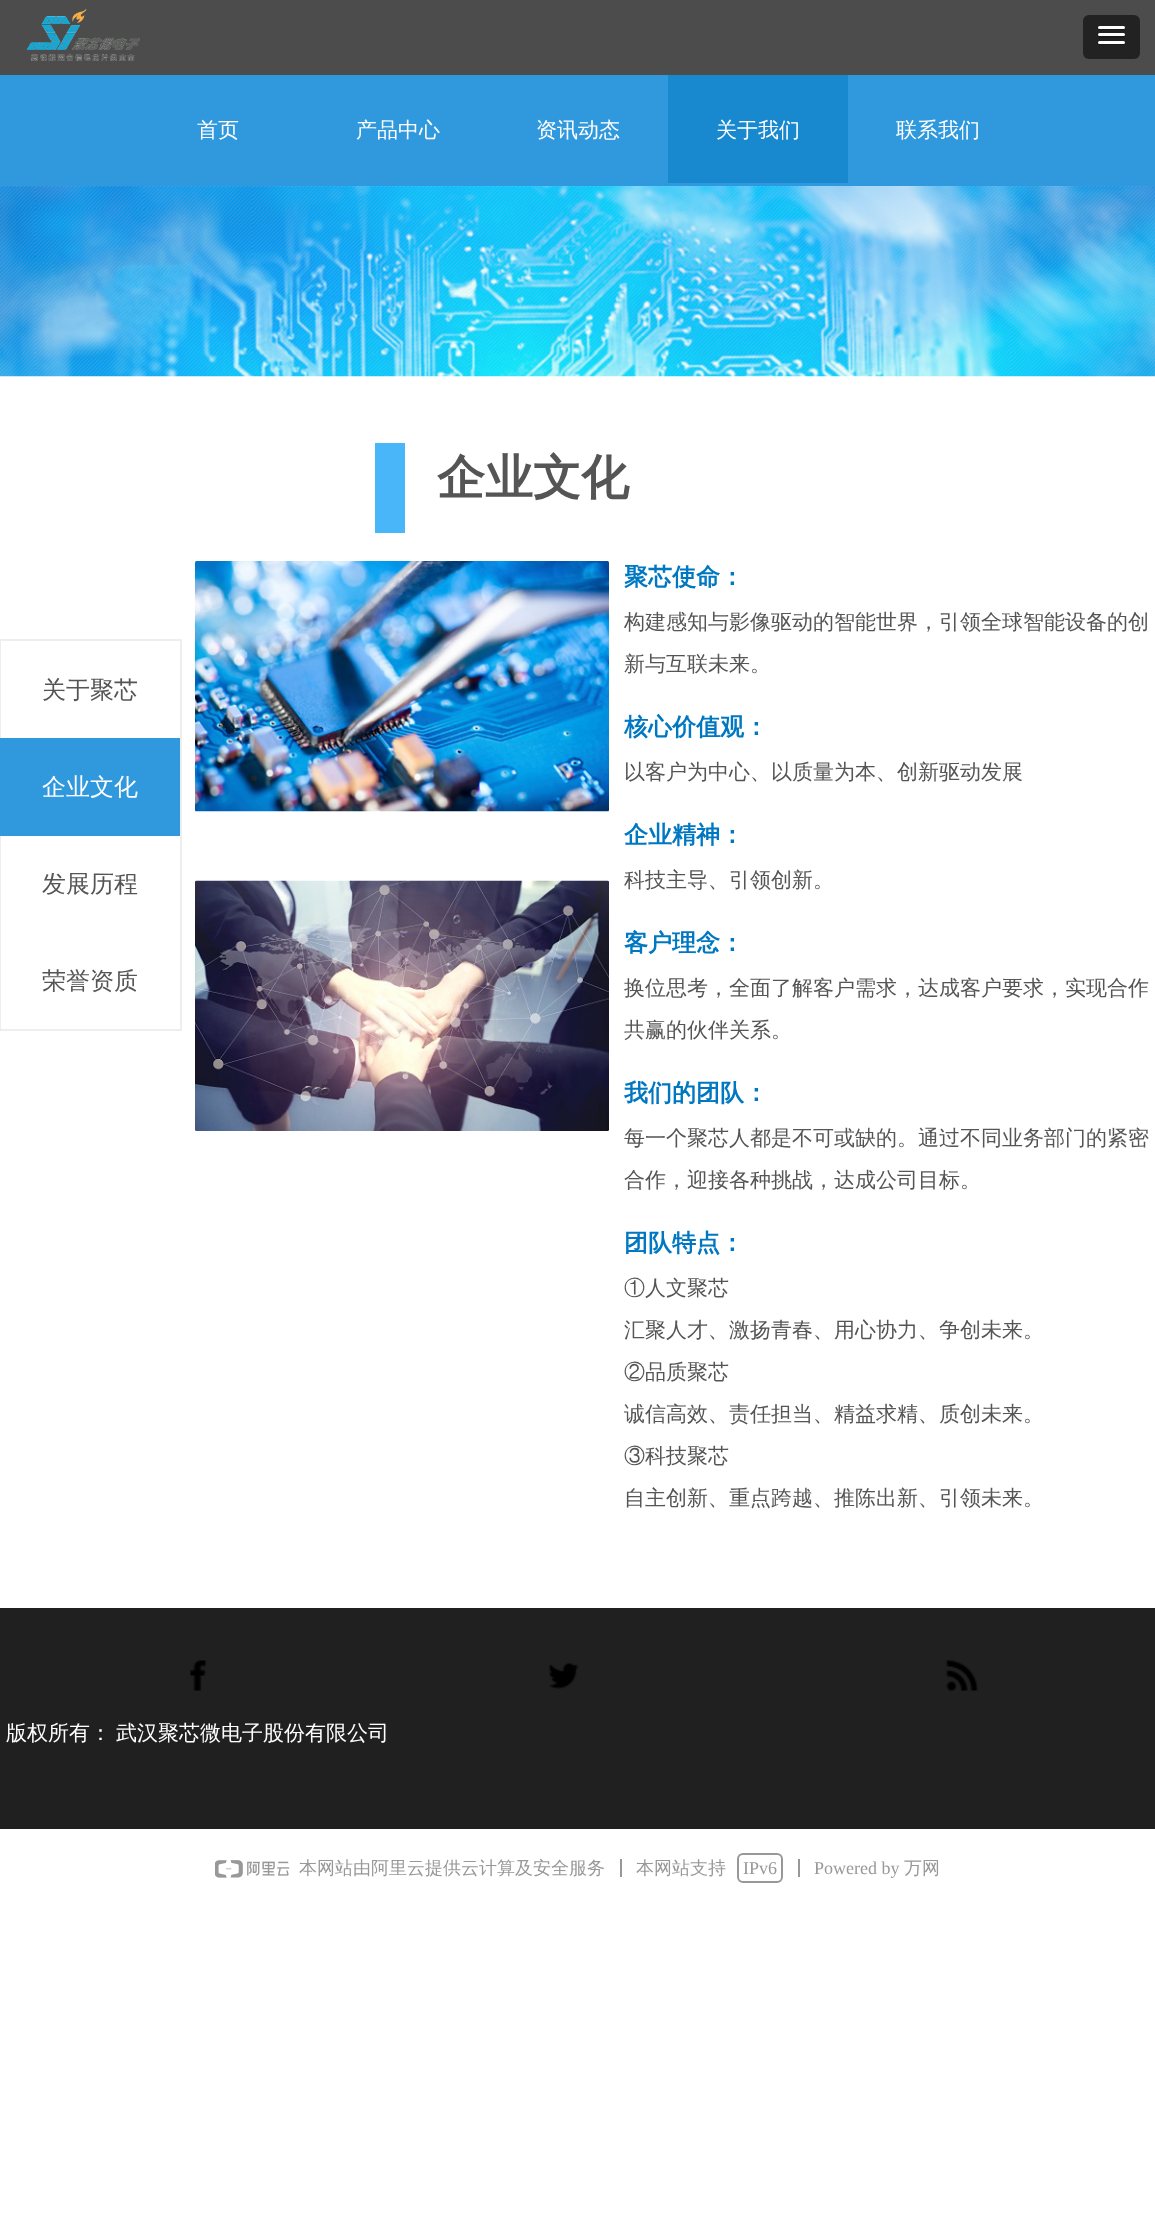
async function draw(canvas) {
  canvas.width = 1155
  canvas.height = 2230
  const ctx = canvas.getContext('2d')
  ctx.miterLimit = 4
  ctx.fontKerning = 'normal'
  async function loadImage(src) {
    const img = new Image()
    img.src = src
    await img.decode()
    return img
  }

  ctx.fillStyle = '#fff'
  ctx.fillRect(0, 0, 1155, 2230)
  ctx.fillStyle = '#4c4c4c'
  ctx.fillRect(0, 0, 1155, 75)
  ctx.drawImage(await loadImage('image0.png'), 26, 9, 114, 52)
  ctx.fillStyle = '#222'
  ctx.beginPath()
  ctx.roundRect(1083, 15, 57, 44, 6)
  ctx.fill()
  ctx.fillStyle = '#1a1a1a'
  ctx.beginPath()
  ctx.moveTo(1098, 27.5)
  ctx.bezierCurveTo(1096.5, 31, 1103.5, 30, 1103.5, 30)
  ctx.lineTo(1119.5, 30)
  ctx.bezierCurveTo(1119.5, 30, 1126.5, 31, 1125, 27.5)
  ctx.bezierCurveTo(1124.5, 28, 1124, 28.5, 1123.5, 28.5)
  ctx.lineTo(1099.5, 28.5)
  ctx.bezierCurveTo(1099, 28.5, 1098.5, 28, 1098, 27.5)
  ctx.closePath()
  ctx.fill()
  ctx.fillStyle = '#fff'
  ctx.beginPath()
  ctx.roundRect(1098, 26, 27, 3, 1.5)
  ctx.fill()
  ctx.fillStyle = '#1a1a1a'
  ctx.beginPath()
  ctx.moveTo(1098.5, 35.5)
  ctx.lineTo(1098, 37)
  ctx.bezierCurveTo(1098.5, 39, 1103, 38, 1103.5, 38)
  ctx.lineTo(1119.5, 38)
  ctx.bezierCurveTo(1120, 38, 1124.5, 39, 1125, 37)
  ctx.lineTo(1124.5, 35.5)
  ctx.lineTo(1123.5, 36)
  ctx.lineTo(1099.5, 36)
  ctx.closePath()
  ctx.fill()
  ctx.fillStyle = '#fff'
  ctx.beginPath()
  ctx.roundRect(1098, 33, 27, 3, 1.5)
  ctx.fill()
  ctx.fillStyle = '#1a1a1a'
  ctx.beginPath()
  ctx.moveTo(1098, 42.5)
  ctx.bezierCurveTo(1096.5, 46, 1103.5, 45, 1103.5, 45)
  ctx.lineTo(1119.5, 45)
  ctx.bezierCurveTo(1119.5, 45, 1126.5, 46, 1125, 42.5)
  ctx.bezierCurveTo(1124.5, 43, 1124, 43.5, 1123.5, 43.5)
  ctx.lineTo(1099.5, 43.5)
  ctx.bezierCurveTo(1099, 43.5, 1098.5, 43, 1098, 42.5)
  ctx.closePath()
  ctx.fill()
  ctx.fillStyle = '#fff'
  ctx.beginPath()
  ctx.roundRect(1098, 41, 27, 3, 1.5)
  ctx.fill()
  ctx.fillStyle = '#3099dd'
  ctx.fillRect(0, 75, 1155, 111)
  ctx.font = '500 21px WenQuanYi Zen Hei'
  ctx.fillStyle = '#fff'
  ctx.fillText('首页', 197, 137)
  ctx.fillText('产品中心', 356, 137)
  ctx.fillText('资讯动态', 536, 137)
  ctx.fillStyle = '#1888cf'
  ctx.fillRect(668, 75, 180, 108)
  ctx.fillStyle = '#fff'
  ctx.fillText('关于我们', 716, 137)
  ctx.fillText('联系我们', 896, 137)
  ctx.drawImage(await loadImage('image1.png'), 0, 186, 1155, 191)
  ctx.fillStyle = '#48b6f8'
  ctx.fillRect(375, 443, 30, 90)
  ctx.font = 'bold 48px WenQuanYi Zen Hei'
  ctx.fillStyle = '#555'
  ctx.fillText('企业文化', 437, 494)
  ctx.strokeStyle = '#eee'
  ctx.lineWidth = 2
  ctx.strokeRect(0, 640, 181, 390)
  ctx.font = '500 24px WenQuanYi Zen Hei'
  ctx.fillText('关于聚芯', 42, 698)
  ctx.fillStyle = '#3099dd'
  ctx.fillRect(0, 738, 180, 98)
  ctx.fillStyle = '#fff'
  ctx.fillText('企业文化', 42, 795)
  ctx.fillStyle = '#555'
  ctx.fillText('发展历程', 42, 892)
  ctx.fillText('荣誉资质', 42, 989)
  ctx.drawImage(await loadImage('image2.png'), 195, 561, 414, 251)
  ctx.font = 'bold 24px WenQuanYi Zen Hei'
  ctx.fillStyle = '#0077c1'
  ctx.fillText('聚芯使命：', 624, 585)
  ctx.font = '500 21px WenQuanYi Zen Hei'
  ctx.fillStyle = '#555'
  ctx.fillText('构建感知与影像驱动的智能世界，引领全球智能设备的创', 624, 629)
  ctx.fillText('新与互联未来。', 624, 671)
  ctx.font = 'bold 24px WenQuanYi Zen Hei'
  ctx.fillStyle = '#0077c1'
  ctx.fillText('核心价值观：', 624, 735)
  ctx.font = '500 21px WenQuanYi Zen Hei'
  ctx.fillStyle = '#555'
  ctx.fillText('以客户为中心、以质量为本、创新驱动发展', 624, 779)
  ctx.font = 'bold 24px WenQuanYi Zen Hei'
  ctx.fillStyle = '#0077c1'
  ctx.fillText('企业精神：', 624, 843)
  ctx.font = '500 21px WenQuanYi Zen Hei'
  ctx.fillStyle = '#555'
  ctx.fillText('科技主导、引领创新。', 624, 887)
  ctx.font = 'bold 24px WenQuanYi Zen Hei'
  ctx.fillStyle = '#0077c1'
  ctx.fillText('客户理念：', 624, 951)
  ctx.font = '500 21px WenQuanYi Zen Hei'
  ctx.fillStyle = '#555'
  ctx.fillText('换位思考，全面了解客户需求，达成客户要求，实现合作', 624, 995)
  ctx.fillText('共赢的伙伴关系。', 624, 1037)
  ctx.font = 'bold 24px WenQuanYi Zen Hei'
  ctx.fillStyle = '#0077c1'
  ctx.fillText('我们的团队：', 624, 1101)
  ctx.font = '500 21px WenQuanYi Zen Hei'
  ctx.fillStyle = '#555'
  ctx.fillText('每一个聚芯人都是不可或缺的。通过不同业务部门的紧密', 624, 1145)
  ctx.fillText('合作，迎接各种挑战，达成公司目标。', 624, 1187)
  ctx.font = 'bold 24px WenQuanYi Zen Hei'
  ctx.fillStyle = '#0077c1'
  ctx.fillText('团队特点：', 624, 1251)
  ctx.font = '500 21px WenQuanYi Zen Hei'
  ctx.fillStyle = '#555'
  ctx.fillText('①人文聚芯', 624, 1295)
  ctx.fillText('汇聚人才、激扬青春、用心协力、争创未来。', 624, 1337)
  ctx.fillText('②品质聚芯', 624, 1379)
  ctx.fillText('诚信高效、责任担当、精益求精、质创未来。', 624, 1421)
  ctx.fillText('③科技聚芯', 624, 1463)
  ctx.fillText('自主创新、重点跨越、推陈出新、引领未来。', 624, 1505)
  ctx.drawImage(await loadImage('image3.png'), 195, 880, 414, 251)
  ctx.fillStyle = '#202020'
  ctx.fillRect(0, 1608, 1155, 221)
  ctx.drawImage(await loadImage('image4.png'), 190, 1660, 16, 31)
  ctx.drawImage(await loadImage('image5.png'), 549, 1663, 30, 26)
  ctx.drawImage(await loadImage('image6.png'), 946, 1660, 32, 31)
  ctx.fillStyle = '#fff'
  ctx.fillText('版权所有：', 6, 1740)
  ctx.fillText('武汉聚芯微电子股份有限公司', 116, 1740)
  ctx.drawImage(await loadImage('image7.png'), 215, 1860, 75, 18)
  ctx.font = '500 18px WenQuanYi Zen Hei'
  ctx.fillStyle = '#989898'
  ctx.fillText('本网站由阿里云提供云计算及安全服务', 299, 1874)
  ctx.fillRect(620, 1859, 2, 18)
  ctx.fillText('本网站支持', 636, 1874)
  ctx.beginPath()
  ctx.roundRect(738, 1854, 44, 28, 5)
  ctx.strokeStyle = '#989898'
  ctx.stroke()
  ctx.font = '18px Liberation Serif'
  ctx.fillText('IPv6', 743, 1874)
  ctx.fillRect(798, 1859, 2, 18)
  ctx.fillText('Powered by', 814, 1874)
  ctx.font = '500 18px WenQuanYi Zen Hei'
  ctx.fillText('万网', 904, 1874)
}

draw(document.querySelector('canvas'))
